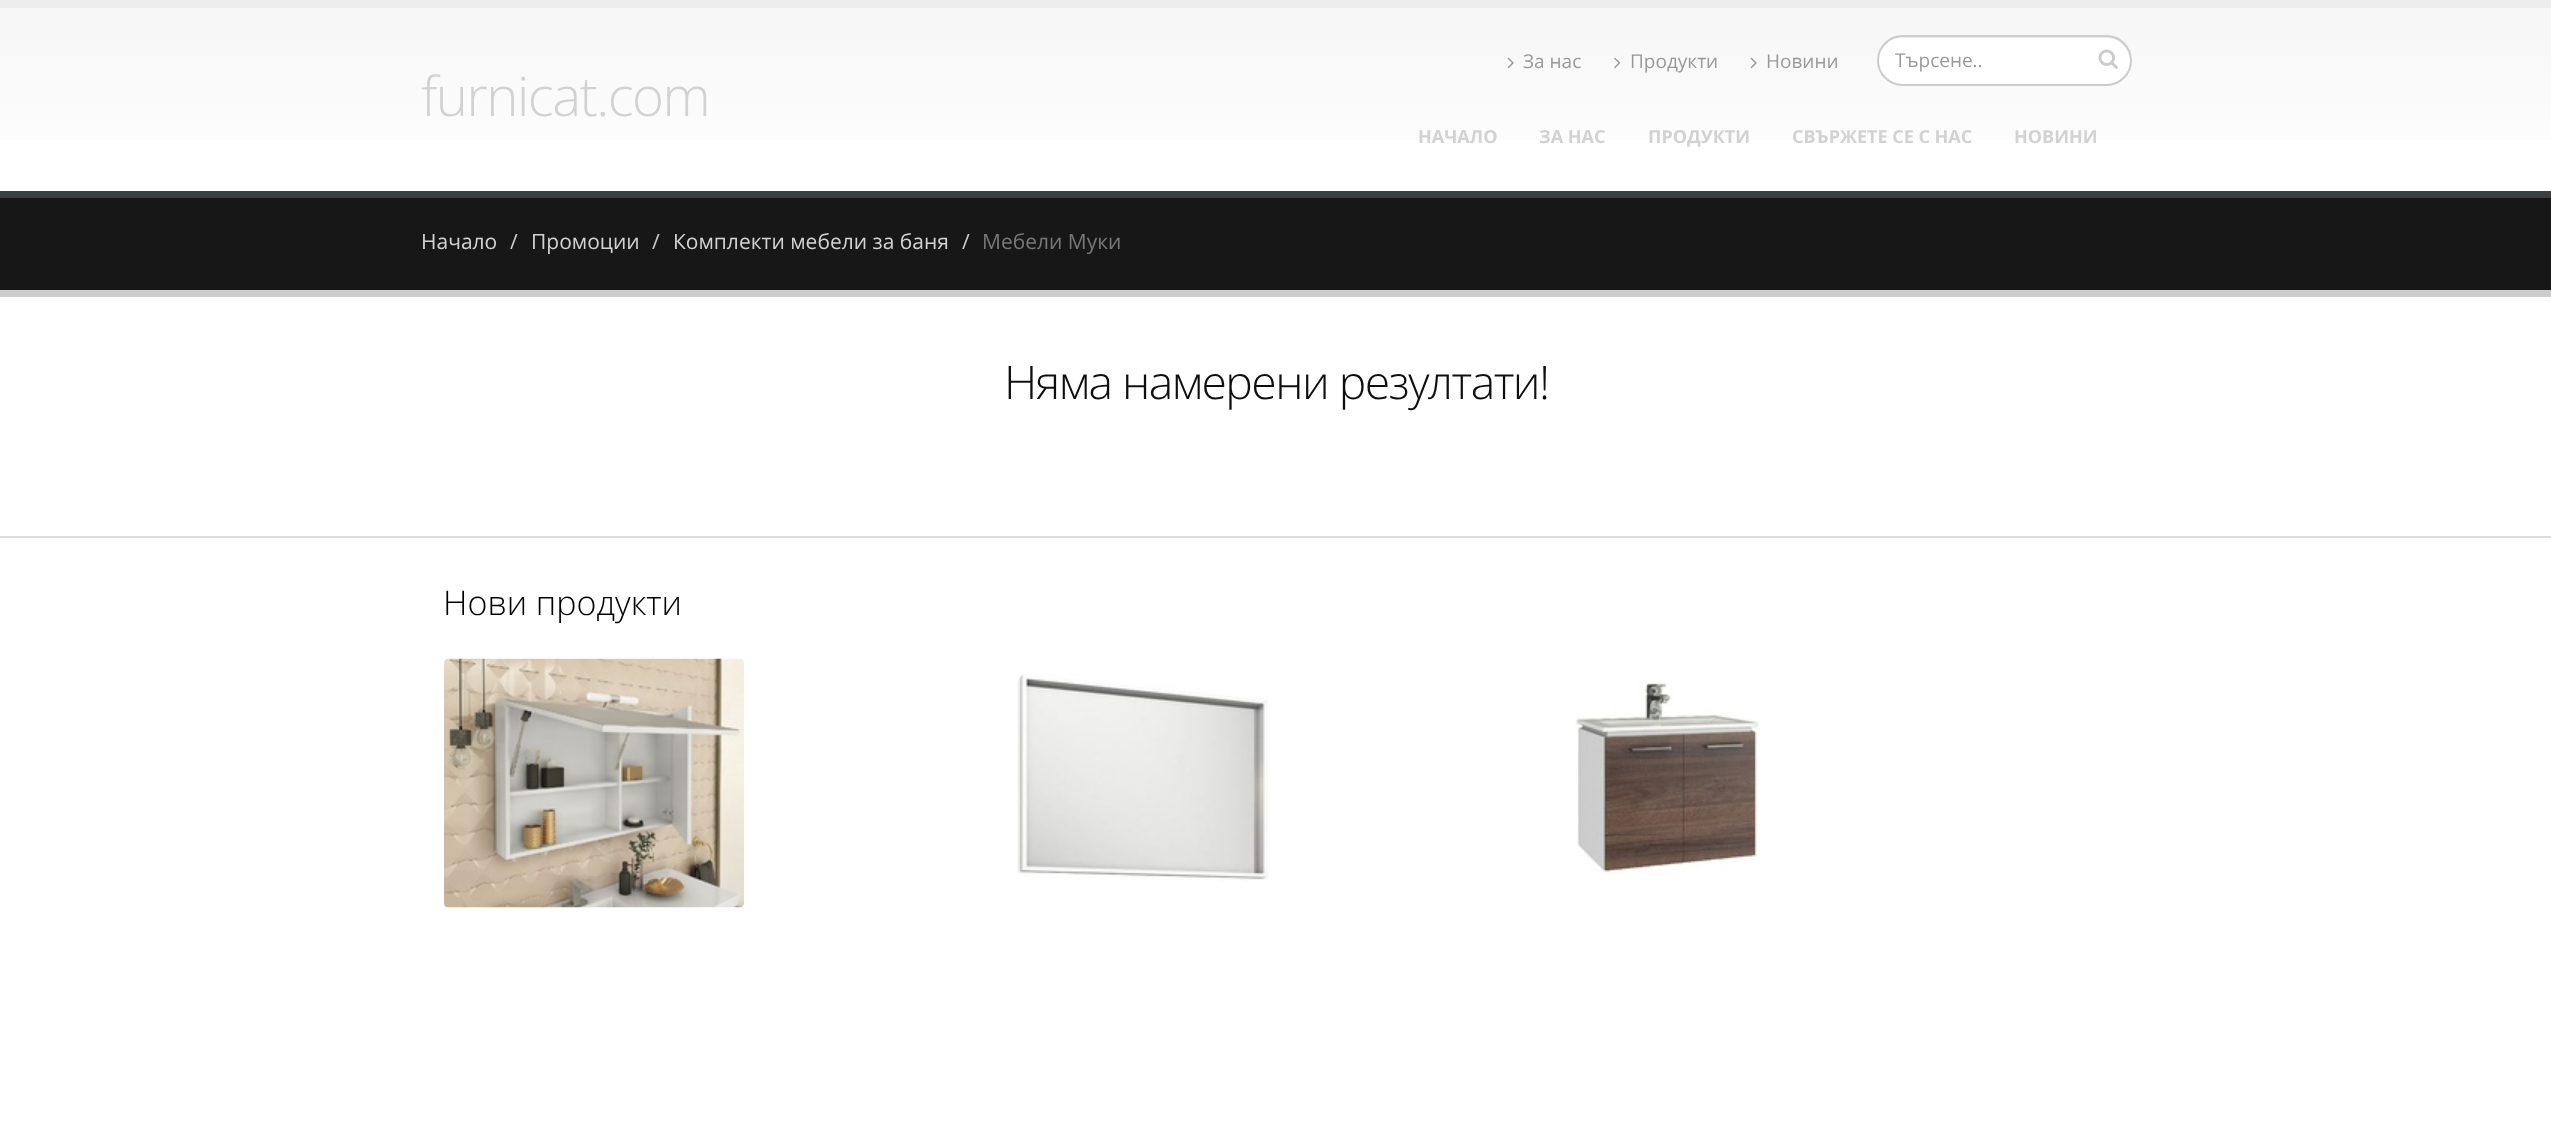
async function draw(canvas) {
  canvas.width = 2551
  canvas.height = 1137
  const ctx = canvas.getContext('2d')
  ctx.miterLimit = 4
  ctx.fontKerning = 'normal'
  async function loadImage(src) {
    const img = new Image()
    img.src = src
    await img.decode()
    return img
  }
  let gradient

  ctx.fillStyle = '#fff'
  ctx.fillRect(0, 0, 2551, 1137)
  gradient = ctx.createLinearGradient(1276, 7.5, 1276, 191)
  gradient.addColorStop(0, '#f6f6f6')
  gradient.addColorStop(1, '#fff')
  ctx.fillStyle = gradient
  ctx.fillRect(0, 8, 2551, 132)
  ctx.fillStyle = '#ededed'
  ctx.fillRect(0, 0, 2551, 8)
  ctx.drawImage(await loadImage('image0.png'), 1507, 57, 7, 12)
  ctx.font = '19px Open Sans'
  ctx.fillStyle = '#999'
  ctx.fillText('За нас', 1523, 68)
  ctx.drawImage(await loadImage('image1.png'), 1614, 57, 7, 11)
  ctx.fillText('Продукти', 1630, 68)
  ctx.drawImage(await loadImage('image0.png'), 1750, 57, 7, 12)
  ctx.fillText('Новини', 1766, 68)
  ctx.fillStyle = '#fff'
  ctx.beginPath()
  ctx.roundRect(1877, 35, 255, 51, 25.5)
  ctx.fill()
  ctx.fillStyle = '#ececec'
  ctx.beginPath()
  ctx.moveTo(1902, 38)
  ctx.lineTo(2106, 38)
  ctx.bezierCurveTo(2119, 38, 2129, 48, 2130, 61)
  ctx.lineTo(2130, 60)
  ctx.bezierCurveTo(2130, 47, 2119, 36, 2106, 36)
  ctx.lineTo(1902, 36)
  ctx.bezierCurveTo(1889, 36, 1878, 47, 1878, 60)
  ctx.lineTo(1878, 61)
  ctx.bezierCurveTo(1879, 48, 1889, 38, 1902, 38)
  ctx.closePath()
  ctx.fill()
  ctx.beginPath()
  ctx.roundRect(1878, 36, 253, 49, 24.5)
  ctx.strokeStyle = '#ccc'
  ctx.lineWidth = 2
  ctx.stroke()
  ctx.fillStyle = '#999'
  ctx.fillText('Търсене..', 1895, 67)
  ctx.drawImage(await loadImage('image2.png'), 2098, 49, 20, 20)
  ctx.letterSpacing = '-1.5px'
  ctx.font = '300 54.5px Open Sans'
  ctx.fillStyle = '#d2d2d2'
  ctx.fillText('furnicat.com', 421, 116)
  ctx.letterSpacing = '0px'
  ctx.font = 'bold 18px Open Sans'
  ctx.fillText('НАЧАЛО', 1418, 143)
  ctx.fillText('ЗА НАС', 1539, 143)
  ctx.fillText('ПРОДУКТИ', 1648, 143)
  ctx.fillText('СВЪРЖЕТЕ СЕ С НАС', 1792, 143)
  ctx.fillText('НОВИНИ', 2014, 143)
  ctx.fillStyle = '#171717'
  ctx.fillRect(0, 198, 2551, 92)
  ctx.fillStyle = '#384045'
  ctx.fillRect(0, 191, 2551, 7)
  ctx.fillStyle = '#ccc'
  ctx.fillRect(0, 290, 2551, 7)
  ctx.font = '21px Open Sans'
  ctx.fillStyle = '#d2d2d2'
  ctx.fillText('Начало', 421, 249)
  ctx.fillStyle = '#ccc'
  ctx.fillText('/', 510, 249)
  ctx.fillStyle = '#d2d2d2'
  ctx.fillText('Промоции', 531, 249)
  ctx.fillStyle = '#ccc'
  ctx.fillText('/', 652, 249)
  ctx.fillStyle = '#d2d2d2'
  ctx.fillText('Комплекти мебели за баня', 673, 249)
  ctx.fillStyle = '#ccc'
  ctx.fillText('/', 962, 249)
  ctx.fillStyle = '#777'
  ctx.fillText('Мебели Муки', 982, 249)
  ctx.letterSpacing = '-1.5px'
  ctx.font = '300 46.25px Open Sans'
  ctx.fillStyle = '#0e0e0e'
  ctx.fillText('Няма намерени резултати!', 1004, 399)
  ctx.fillStyle = '#ddd'
  ctx.fillRect(0, 536, 2551, 2)
  ctx.letterSpacing = '0px'
  ctx.font = '300 34px Open Sans'
  ctx.fillStyle = '#000'
  ctx.fillText('Нови продукти', 443, 615)
  ctx.drawImage(await loadImage('image3.png'), 444, 658, 300, 250)
  ctx.drawImage(await loadImage('image4.png'), 1017, 674, 252, 208)
  ctx.drawImage(await loadImage('image5.png'), 1575, 682, 184, 193)
}

draw(document.querySelector('canvas'))
